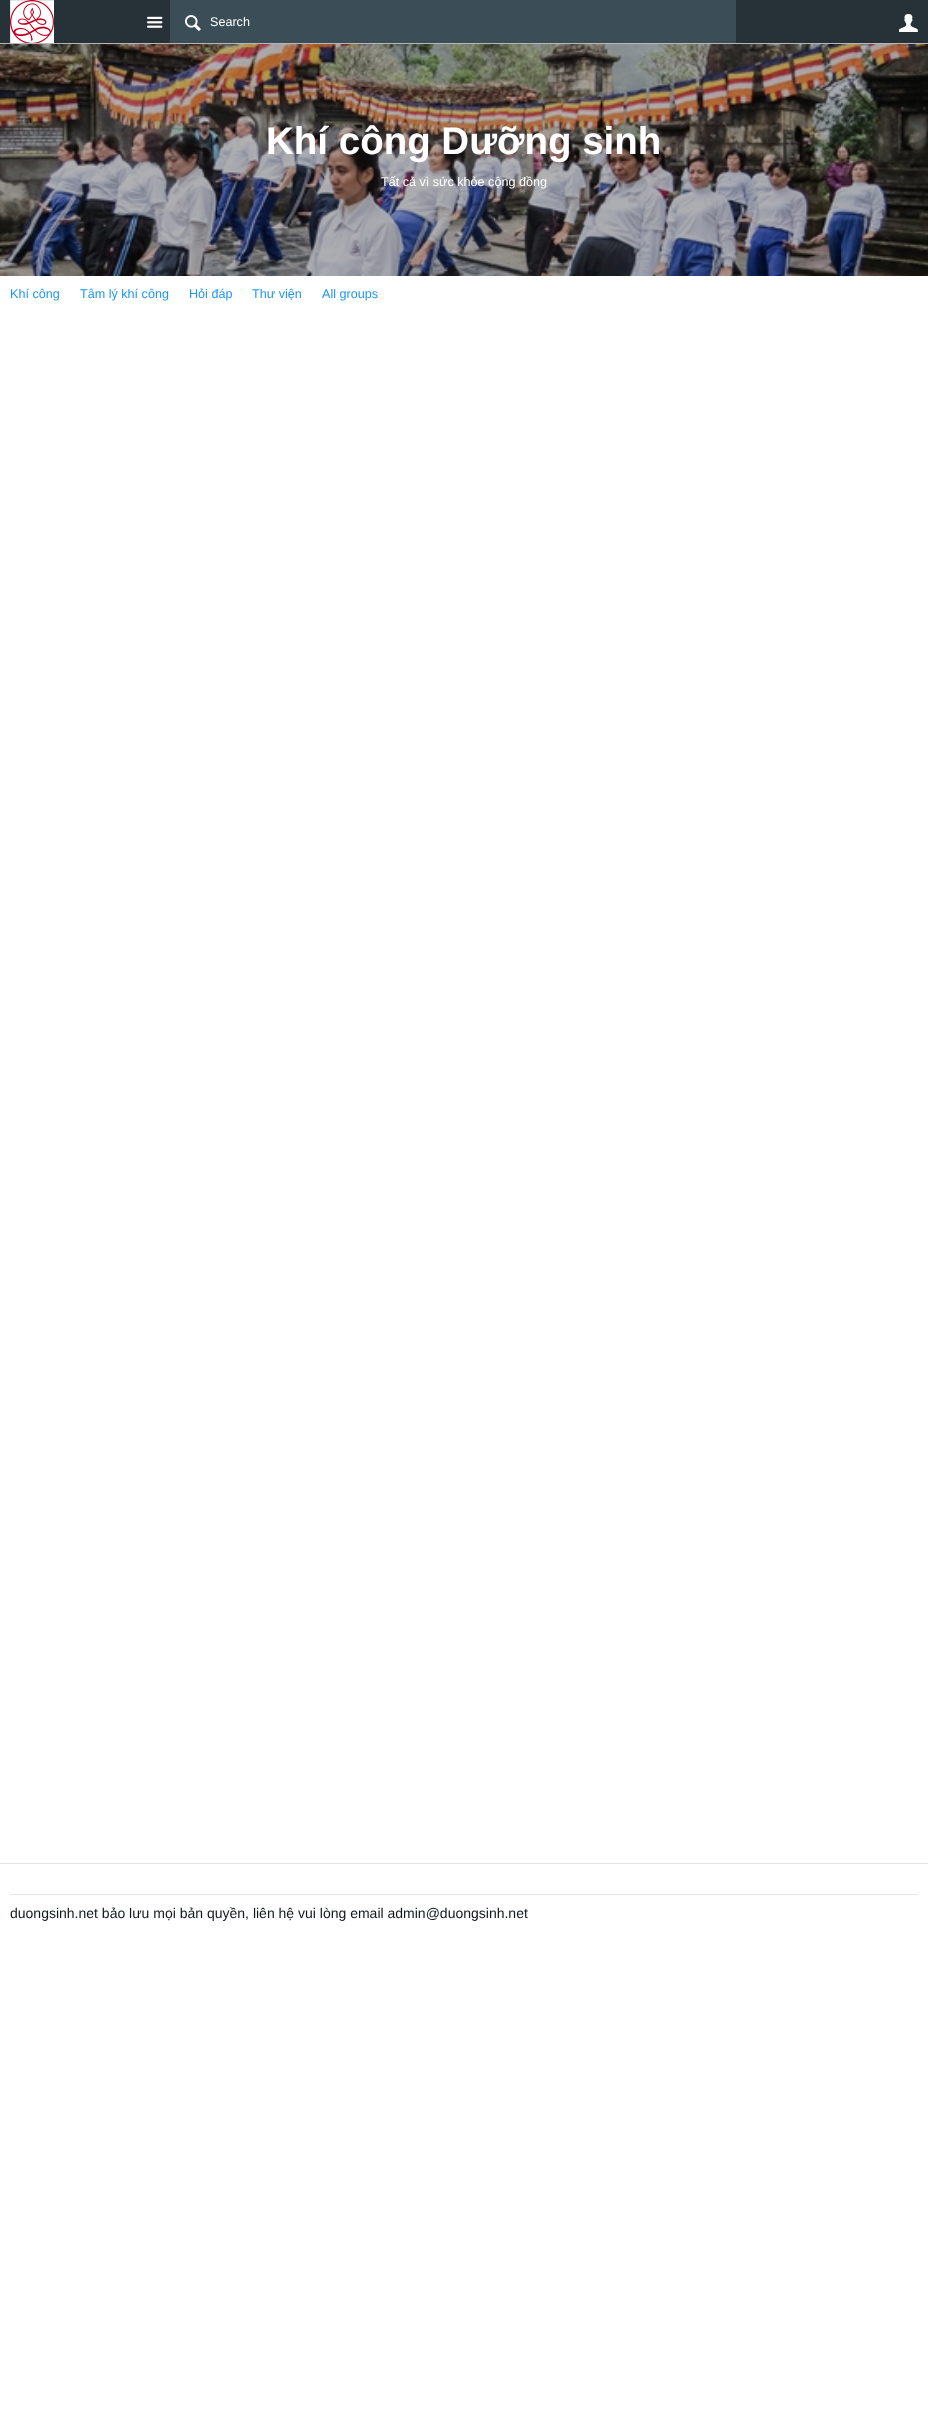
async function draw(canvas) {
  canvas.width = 928
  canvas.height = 2425
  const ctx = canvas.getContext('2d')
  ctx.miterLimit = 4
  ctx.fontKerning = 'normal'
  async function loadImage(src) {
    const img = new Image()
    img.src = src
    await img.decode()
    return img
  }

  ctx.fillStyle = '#fff'
  ctx.fillRect(0, 0, 928, 2425)
  ctx.fillStyle = '#263238'
  ctx.fillRect(0, 0, 928, 43)
  ctx.drawImage(await loadImage('image0.png'), 10, 0, 44, 43)
  ctx.drawImage(await loadImage('image1.png'), 147, 16, 16, 12)
  ctx.fillStyle = '#3b4d56'
  ctx.fillRect(170, 0, 566, 43)
  ctx.drawImage(await loadImage('image2.png'), 185, 15, 16, 16)
  ctx.font = '12.6px Liberation Sans'
  ctx.fillStyle = '#fff'
  ctx.fillText('Search', 210, 26)
  ctx.drawImage(await loadImage('image3.png'), 899, 14, 19, 18)
  ctx.fillStyle = '#b5b7b8'
  ctx.fillRect(0, 43, 928, 1)
  ctx.drawImage(await loadImage('image4.png'), 0, 44, 928, 232)
  ctx.font = 'bold 38.5px Liberation Sans'
  ctx.fillStyle = '#fff'
  ctx.fillText('Khí công Dưỡng sinh', 266, 154)
  ctx.font = '12.6px Liberation Sans'
  ctx.fillText('Tất cả vì sức khỏe cộng đồng', 381, 186)
  ctx.fillStyle = '#2196f3'
  ctx.fillText('Khí công', 10, 298)
  ctx.fillText('Tâm lý khí công', 80, 298)
  ctx.fillText('Hỏi đáp', 189, 298)
  ctx.fillText('Thư viện', 252, 298)
  ctx.fillText('All groups', 322, 298)
  ctx.fillStyle = '#e5e5e6'
  ctx.fillRect(0, 1863, 928, 1)
  ctx.fillRect(10, 1894, 908, 1)
  ctx.font = '14px Liberation Sans'
  ctx.fillStyle = '#11171a'
  ctx.fillText('duongsinh.net bảo lưu mọi bản quyền, liên hệ vui lòng email admin@duongsinh.net', 10, 1918)
}

draw(document.querySelector('canvas'))
